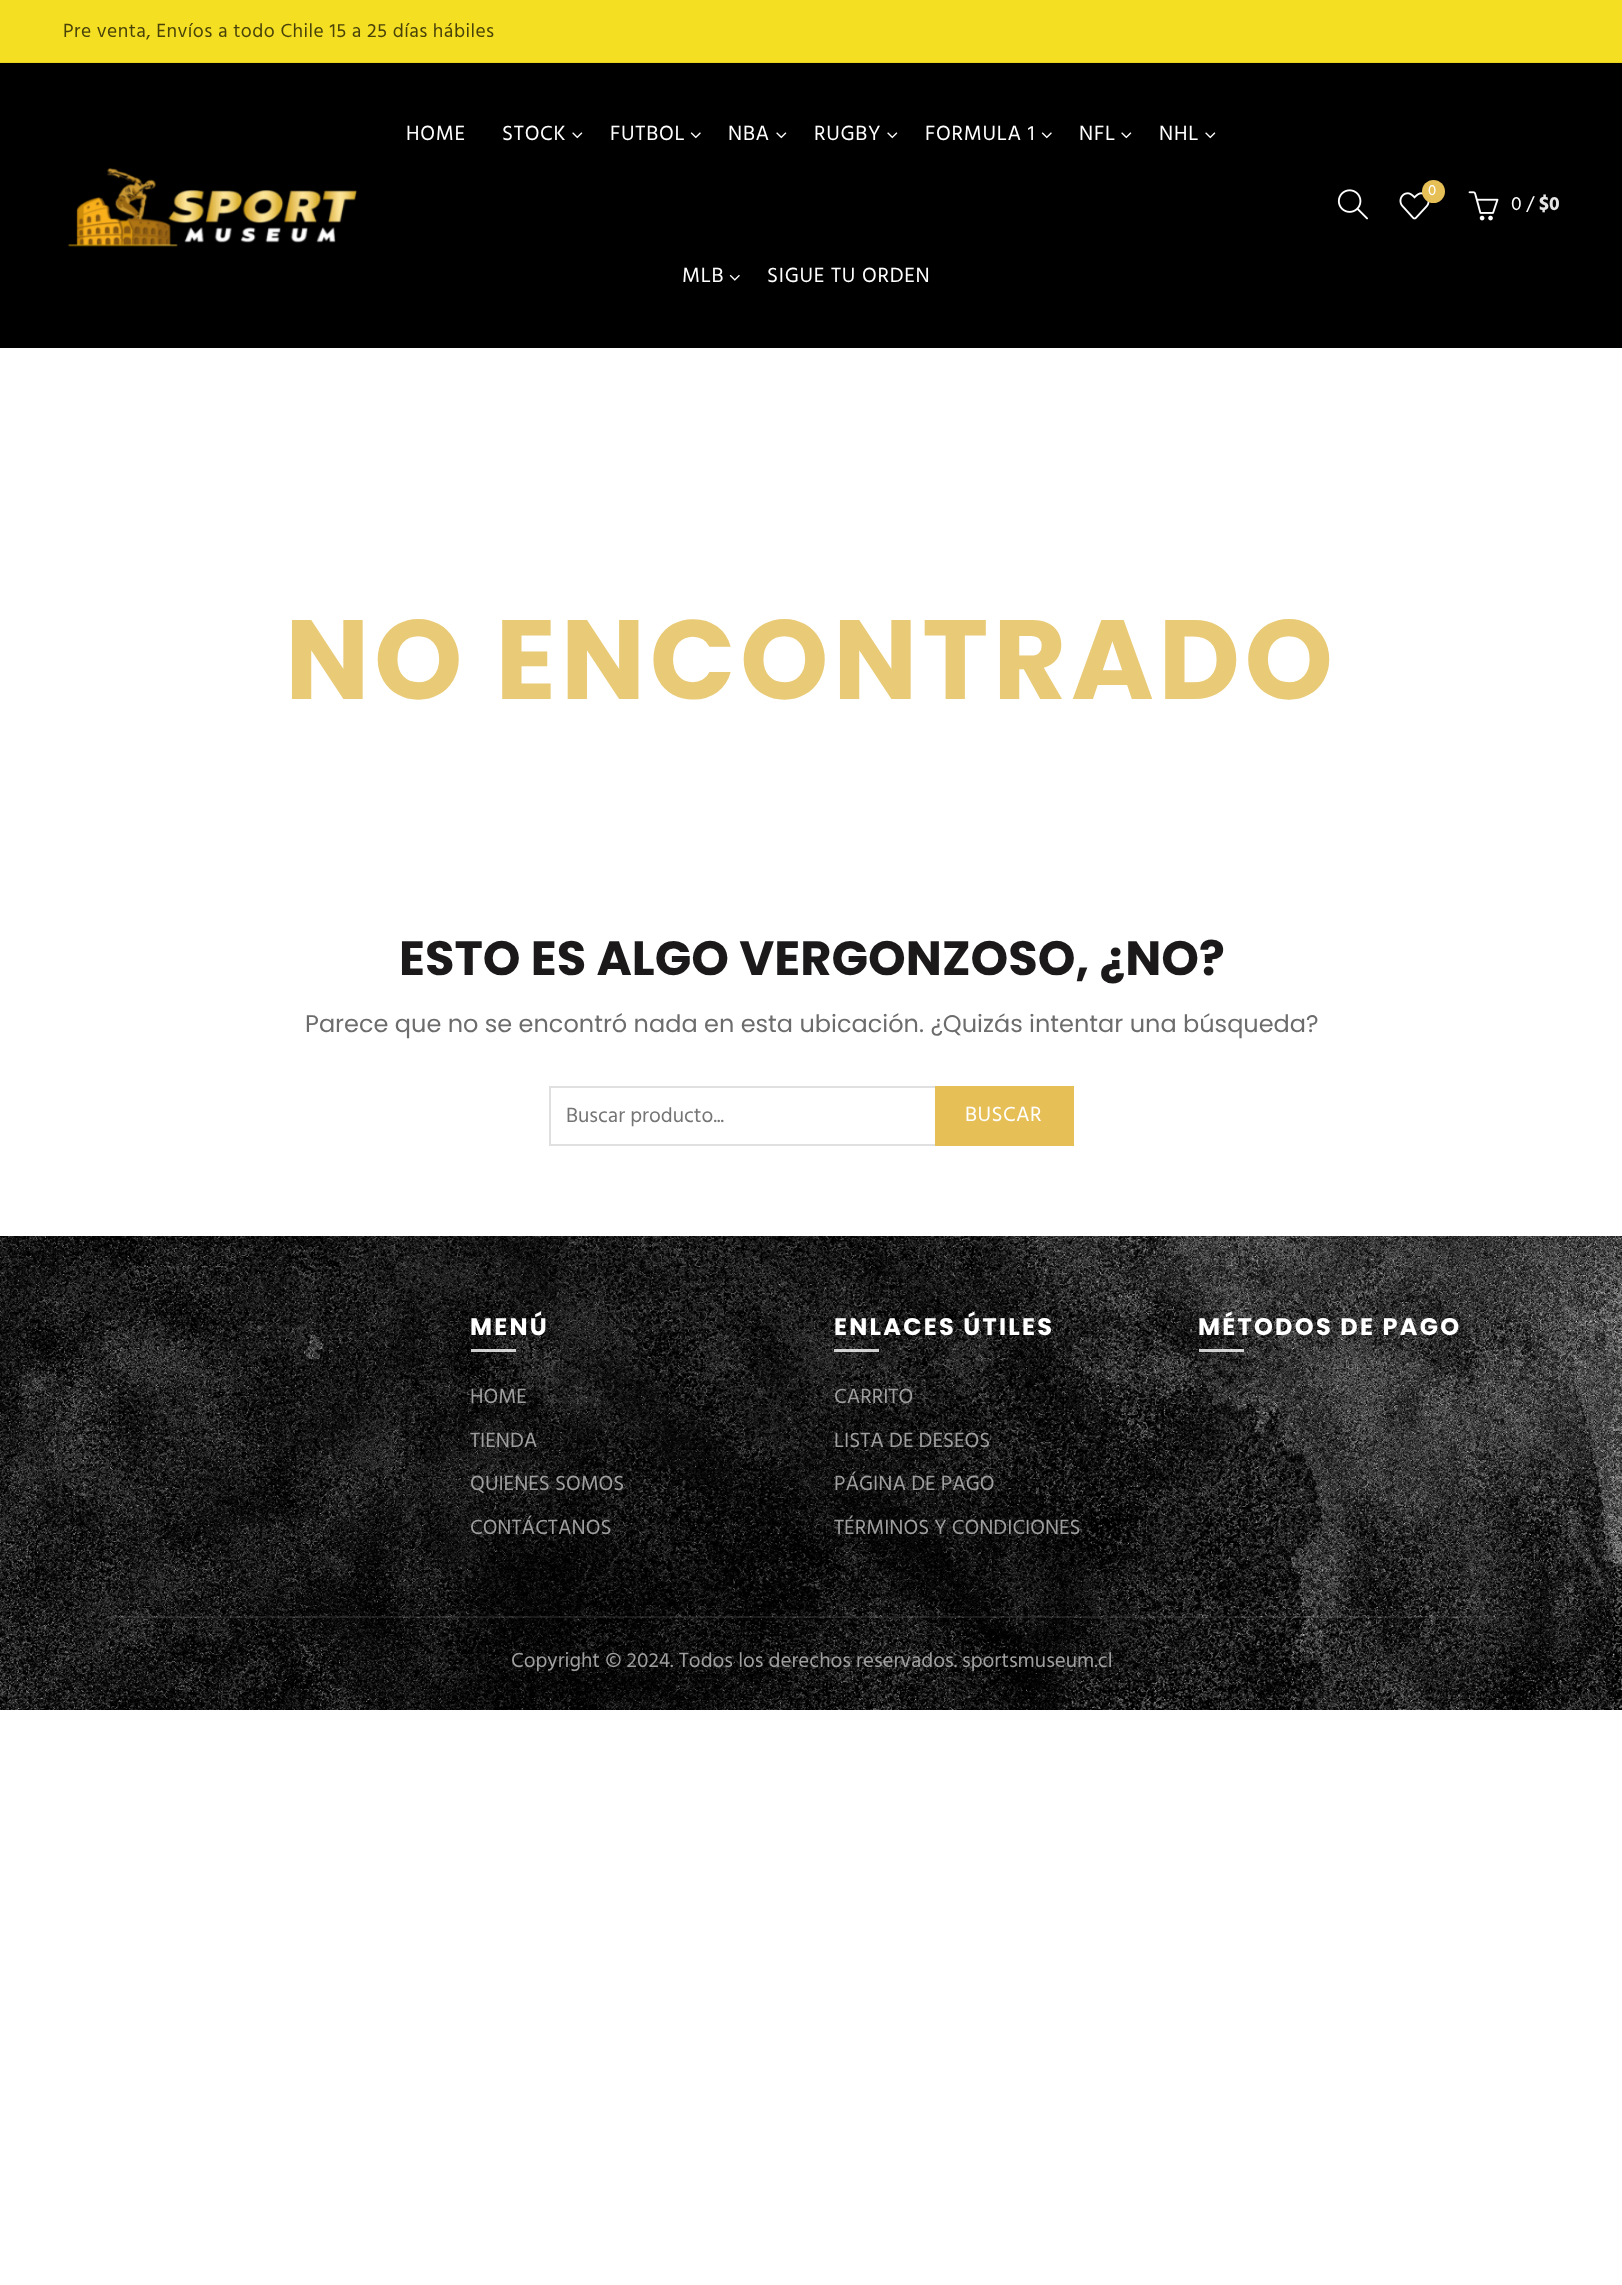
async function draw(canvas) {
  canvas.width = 1622
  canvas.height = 2285
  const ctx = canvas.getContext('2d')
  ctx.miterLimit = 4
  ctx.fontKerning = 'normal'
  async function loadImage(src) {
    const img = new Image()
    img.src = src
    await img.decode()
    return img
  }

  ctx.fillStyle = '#fff'
  ctx.fillRect(0, 0, 1622, 2285)
  ctx.fillStyle = '#f4df22'
  ctx.fillRect(0, 0, 1622, 62)
  ctx.fillStyle = '#e8d420'
  ctx.fillRect(0, 62, 1622, 1)
  ctx.letterSpacing = '0.45px'
  ctx.font = '19.5px Hind'
  ctx.fillStyle = '#49430a'
  ctx.fillText('Pre venta, Envíos a todo Chile 15 a 25 días hábiles', 63, 37)
  ctx.fillStyle = '#000'
  ctx.fillRect(0, 63, 1622, 285)
  ctx.drawImage(await loadImage('image0.png'), 67, 168, 291, 79)
  ctx.letterSpacing = '0.75px'
  ctx.font = '21px Hind'
  ctx.fillStyle = '#fff'
  ctx.fillText('HOME', 406, 140)
  ctx.fillText('STOCK', 502, 140)
  ctx.drawImage(await loadImage('image1.png'), 572, 132, 11, 7)
  ctx.fillText('FUTBOL', 610, 140)
  ctx.drawImage(await loadImage('image2.png'), 690, 132, 11, 7)
  ctx.fillText('NBA', 728, 140)
  ctx.drawImage(await loadImage('image1.png'), 776, 132, 11, 7)
  ctx.fillText('RUGBY', 814, 140)
  ctx.drawImage(await loadImage('image1.png'), 887, 132, 11, 7)
  ctx.fillText('FORMULA 1', 925, 140)
  ctx.drawImage(await loadImage('image2.png'), 1041, 132, 11, 7)
  ctx.fillText('NFL', 1079, 140)
  ctx.drawImage(await loadImage('image1.png'), 1121, 132, 11, 7)
  ctx.fillText('NHL', 1159, 140)
  ctx.drawImage(await loadImage('image1.png'), 1205, 132, 11, 7)
  ctx.fillText('MLB', 682, 282)
  ctx.drawImage(await loadImage('image3.png'), 729, 274, 11, 7)
  ctx.fillText('SIGUE TU ORDEN', 767, 282)
  ctx.drawImage(await loadImage('image4.png'), 1337, 189, 31, 31)
  ctx.drawImage(await loadImage('image5.png'), 1399, 192, 31, 28)
  ctx.fillStyle = '#e6bf57'
  ctx.beginPath()
  ctx.arc(1433.5, 191.5, 11.5, 0, 2 * Math.PI)
  ctx.fill()
  ctx.letterSpacing = '0px'
  ctx.font = '15px Hind'
  ctx.fillStyle = '#fff'
  ctx.fillText('0', 1428, 195)
  ctx.drawImage(await loadImage('image6.png'), 1468, 191, 31, 30)
  ctx.font = '19.5px Hind'
  ctx.fillText('0 /', 1511, 210)
  ctx.font = 'bold 19.5px Hind'
  ctx.fillStyle = '#e6e6e6'
  ctx.fillText('$0', 1539, 210)
  ctx.letterSpacing = '4.5px'
  ctx.font = 'bold 112.5px Poppins'
  ctx.fillStyle = '#e9ca76'
  ctx.fillText('NO ENCONTRADO', 285, 699)
  ctx.letterSpacing = '0px'
  ctx.font = 'bold 48px Poppins'
  ctx.fillStyle = '#1b1919'
  ctx.fillText('ESTO ES ALGO VERGONZOSO, ¿NO?', 399, 975)
  ctx.font = '24px Poppins'
  ctx.fillStyle = '#6c6c6c'
  ctx.fillText('Parece que no se encontró nada en esta ubicación. ¿Quizás intentar una búsqueda?', 305, 1032)
  ctx.strokeStyle = '#e0e0e0'
  ctx.lineWidth = 2
  ctx.strokeRect(550, 1087, 523, 58)
  ctx.font = '21px Hind'
  ctx.fillStyle = '#757575'
  ctx.fillText('Buscar producto...', 566, 1122)
  ctx.fillStyle = '#e6bf57'
  ctx.fillRect(935, 1086, 139, 60)
  ctx.letterSpacing = '0.45px'
  ctx.fillStyle = '#fff'
  ctx.fillText('BUSCAR', 965, 1121)
  ctx.drawImage(await loadImage('image7.png'), 0, 1236, 1622, 474)
  ctx.letterSpacing = '2.25px'
  ctx.font = 'bold 24px Poppins'
  ctx.fillText('MENÚ', 470, 1335)
  ctx.fillStyle = '#ffffffcc'
  ctx.fillRect(471, 1349, 45, 3)
  ctx.letterSpacing = '0px'
  ctx.font = '21px Hind'
  ctx.fillStyle = '#9f9f9f'
  ctx.fillText('HOME', 470, 1403)
  ctx.fillText('TIENDA', 470, 1447)
  ctx.fillText('QUIENES SOMOS', 470, 1490)
  ctx.fillText('CONTÁCTANOS', 470, 1534)
  ctx.letterSpacing = '2.25px'
  ctx.font = 'bold 24px Poppins'
  ctx.fillStyle = '#fff'
  ctx.fillText('ENLACES ÚTILES', 834, 1335)
  ctx.fillStyle = '#ffffffcc'
  ctx.fillRect(834, 1349, 45, 3)
  ctx.letterSpacing = '0px'
  ctx.font = '21px Hind'
  ctx.fillStyle = '#9f9f9f'
  ctx.fillText('CARRITO', 834, 1403)
  ctx.fillText('LISTA DE DESEOS', 834, 1447)
  ctx.fillText('PÁGINA DE PAGO', 834, 1490)
  ctx.fillText('TÉRMINOS Y CONDICIONES', 834, 1534)
  ctx.letterSpacing = '2.25px'
  ctx.font = 'bold 24px Poppins'
  ctx.fillStyle = '#fff'
  ctx.fillText('MÉTODOS DE PAGO', 1198, 1335)
  ctx.fillStyle = '#ffffffcc'
  ctx.fillRect(1199, 1349, 45, 3)
  ctx.fillStyle = '#ffffff1a'
  ctx.fillRect(107, 1616, 1410, 2)
  ctx.letterSpacing = '0px'
  ctx.font = '21px Hind'
  ctx.fillStyle = '#9f9f9f'
  ctx.fillText('Copyright © 2024. Todos los derechos reservados.', 511, 1667)
  ctx.fillText('sportsmuseum.cl', 962, 1667)
}

draw(document.querySelector('canvas'))
